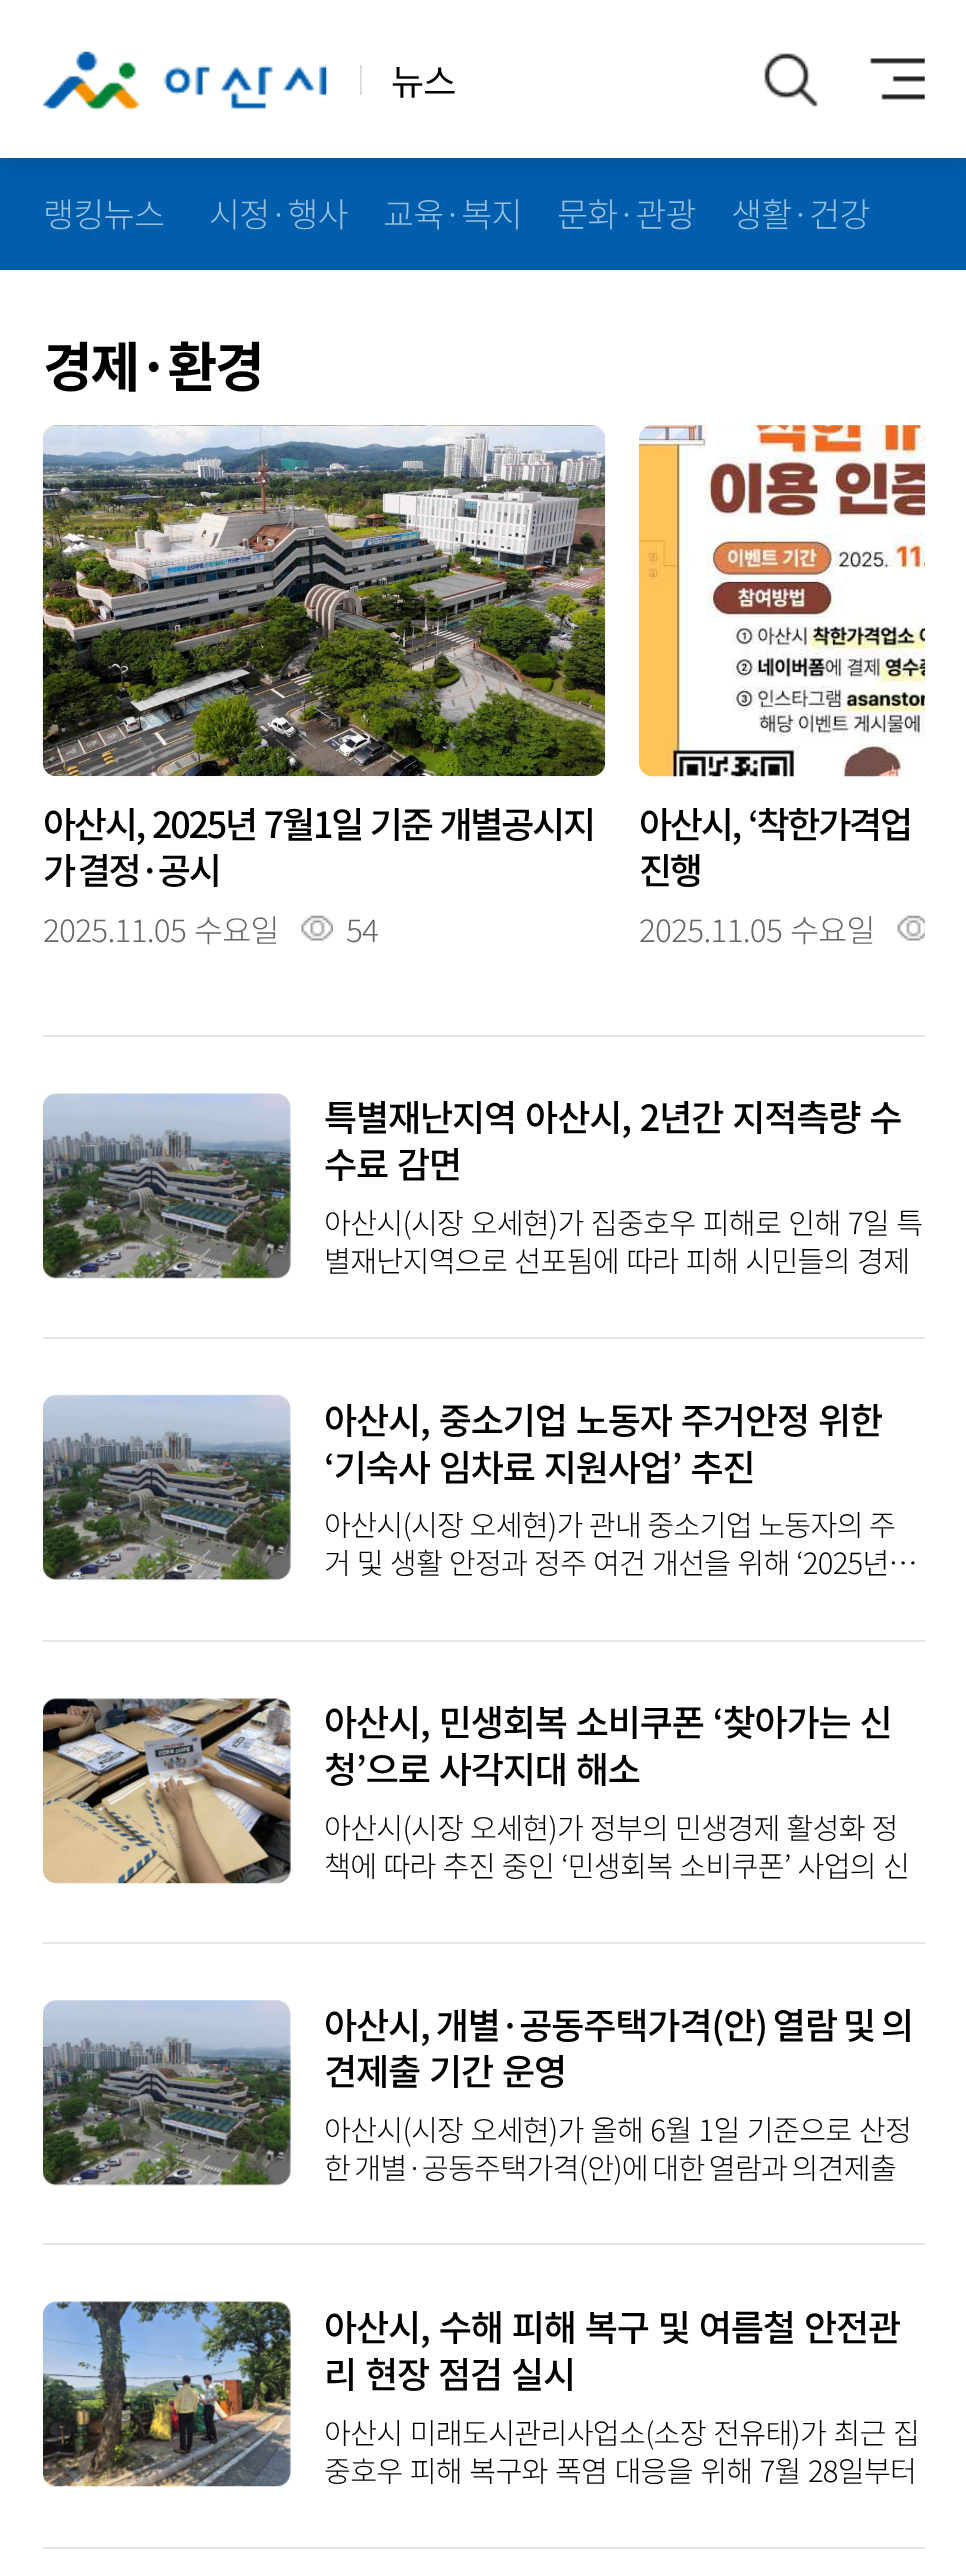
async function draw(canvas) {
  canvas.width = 966
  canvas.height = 2556
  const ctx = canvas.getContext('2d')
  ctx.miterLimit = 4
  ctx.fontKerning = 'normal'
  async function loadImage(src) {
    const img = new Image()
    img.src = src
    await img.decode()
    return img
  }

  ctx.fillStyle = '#fff'
  ctx.fillRect(0, 0, 966, 2556)
  ctx.fillStyle = '#005ead'
  ctx.fillRect(0, 158, 966, 112)
  ctx.fillStyle = '#00000026'
  ctx.filter = 'blur(14.5px)'
  ctx.beginPath()
  ctx.rect(0, 2, 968, 158)
  ctx.fill()
  ctx.filter = 'none'
  ctx.fillStyle = '#fff'
  ctx.fillRect(0, 0, 966, 158)
  ctx.drawImage(await loadImage('image0.png'), 42, 51, 285, 60)
  ctx.fillStyle = '#dcdcdc'
  ctx.fillRect(360, 65, 2, 30)
  ctx.letterSpacing = '-0.75px'
  ctx.font = '36px Noto Sans KR'
  ctx.fillStyle = '#000'
  ctx.fillText('뉴스', 391, 95)
  ctx.drawImage(await loadImage('image1.png'), 764, 53, 54, 54)
  ctx.drawImage(await loadImage('image2.png'), 870, 58, 55, 42)
  ctx.font = '300 33.75px Noto Sans KR'
  ctx.fillStyle = '#99bfde'
  ctx.fillText('랭킹뉴스', 43, 227)
  ctx.fillText('시정·행사', 209, 227)
  ctx.fillText('교육·복지', 383, 227)
  ctx.fillText('문화·관광', 557, 227)
  ctx.fillText('생활·건강', 731, 227)
  ctx.letterSpacing = '-2.25px'
  ctx.font = 'bold 54px Noto Sans KR'
  ctx.fillStyle = '#000'
  ctx.fillText('경제·환경', 43, 387)
  ctx.fillStyle = '#e5e5e5'
  ctx.fillRect(43, 1035, 882, 2)
  ctx.fillStyle = '#f0f0f0'
  ctx.beginPath()
  ctx.roundRect(43, 425, 562, 351, 14)
  ctx.fill()
  ctx.drawImage(await loadImage('image3.png'), 42, 425, 564, 352)
  ctx.wordSpacing = '2px'
  ctx.font = '500 36px Noto Sans KR'
  ctx.fillStyle = '#000'
  ctx.fillText('아산시, 2025년 7월1일 기준 개별공시지', 43, 838)
  ctx.wordSpacing = '-2px'
  ctx.fillText('가 결정·공시', 43, 884)
  ctx.letterSpacing = '-0.75px'
  ctx.wordSpacing = '0px'
  ctx.font = '300 31.5px Noto Sans KR'
  ctx.fillStyle = '#666'
  ctx.fillText('2025.11.05', 43, 942)
  ctx.fillText('수요일', 194, 942)
  ctx.drawImage(await loadImage('image4.png'), 301, 915, 32, 26)
  ctx.fillText('54', 346, 942)
  ctx.fillStyle = '#f0f0f0'
  ctx.beginPath()
  ctx.roundRect(639, 425, 286, 351, [14, 0, 0, 14])
  ctx.fill()
  ctx.drawImage(await loadImage('image5.png'), 639, 425, 286, 352)
  ctx.letterSpacing = '-2.25px'
  ctx.wordSpacing = '2px'
  ctx.font = '500 36px Noto Sans KR'
  ctx.fillStyle = '#000'
  ctx.fillText('아산시, ‘착한가격업', 639, 838)
  ctx.wordSpacing = '0px'
  ctx.fillText('진행', 639, 884)
  ctx.letterSpacing = '-0.75px'
  ctx.font = '300 31.5px Noto Sans KR'
  ctx.fillStyle = '#666'
  ctx.fillText('2025.11.05', 639, 942)
  ctx.fillText('수요일', 790, 942)
  ctx.drawImage(await loadImage('image6.png'), 897, 915, 28, 26)
  ctx.fillStyle = '#e5e5e5'
  ctx.fillRect(43, 1337, 882, 2)
  ctx.drawImage(await loadImage('image7.png'), 43, 1093, 248, 186)
  ctx.letterSpacing = '-1.1px'
  ctx.wordSpacing = '2px'
  ctx.font = '500 36px Noto Sans KR'
  ctx.fillStyle = '#000'
  ctx.fillText('특별재난지역 아산시, 2년간 지적측량 수', 324, 1131)
  ctx.fillText('수료 감면', 324, 1178)
  ctx.letterSpacing = '-0.75px'
  ctx.wordSpacing = '1.5px'
  ctx.font = '300 29.25px Noto Sans KR'
  ctx.fillText('아산시(시장 오세현)가 집중호우 피해로 인해 7일 특', 324, 1234)
  ctx.fillText('별재난지역으로 선포됨에 따라 피해 시민들의 경제', 324, 1272)
  ctx.fillStyle = '#e5e5e5'
  ctx.fillRect(43, 1640, 882, 2)
  ctx.drawImage(await loadImage('image8.png'), 43, 1394, 248, 187)
  ctx.letterSpacing = '-1.1px'
  ctx.wordSpacing = '2px'
  ctx.font = '500 36px Noto Sans KR'
  ctx.fillStyle = '#000'
  ctx.fillText('아산시, 중소기업 노동자 주거안정 위한', 324, 1434)
  ctx.fillText('‘기숙사 임차료 지원사업’ 추진', 324, 1481)
  ctx.letterSpacing = '-0.75px'
  ctx.wordSpacing = '0.5px'
  ctx.font = '300 29.25px Noto Sans KR'
  ctx.fillText('아산시(시장 오세현)가 관내 중소기업 노동자의 주', 324, 1536)
  ctx.wordSpacing = '1px'
  ctx.fillText('거 및 생활 안정과 정주 여건 개선을 위해 ‘2025년…', 324, 1574)
  ctx.fillStyle = '#e5e5e5'
  ctx.fillRect(43, 1942, 882, 2)
  ctx.drawImage(await loadImage('image9.png'), 43, 1698, 248, 186)
  ctx.letterSpacing = '-1.1px'
  ctx.wordSpacing = '2px'
  ctx.font = '500 36px Noto Sans KR'
  ctx.fillStyle = '#000'
  ctx.fillText('아산시, 민생회복 소비쿠폰 ‘찾아가는 신', 324, 1736)
  ctx.fillText('청’으로 사각지대 해소', 324, 1783)
  ctx.letterSpacing = '-0.75px'
  ctx.wordSpacing = '1px'
  ctx.font = '300 29.25px Noto Sans KR'
  ctx.fillText('아산시(시장 오세현)가 정부의 민생경제 활성화 정', 324, 1839)
  ctx.wordSpacing = '1.25px'
  ctx.fillText('책에 따라 추진 중인 ‘민생회복 소비쿠폰’ 사업의 신', 324, 1877)
  ctx.fillStyle = '#e5e5e5'
  ctx.fillRect(43, 2243, 882, 2)
  ctx.drawImage(await loadImage('image10.png'), 43, 2000, 248, 186)
  ctx.letterSpacing = '-1.1px'
  ctx.wordSpacing = '-1px'
  ctx.font = '500 36px Noto Sans KR'
  ctx.fillStyle = '#000'
  ctx.fillText('아산시, 개별·공동주택가격(안) 열람 및 의', 324, 2039)
  ctx.wordSpacing = '2px'
  ctx.fillText('견제출 기간 운영', 324, 2085)
  ctx.letterSpacing = '-0.75px'
  ctx.wordSpacing = '1.5px'
  ctx.font = '300 29.25px Noto Sans KR'
  ctx.fillText('아산시(시장 오세현)가 올해 6월 1일 기준으로 산정', 324, 2141)
  ctx.wordSpacing = '-1.5px'
  ctx.fillText('한 개별·공동주택가격(안)에 대한 열람과 의견제출', 324, 2179)
  ctx.fillStyle = '#e5e5e5'
  ctx.fillRect(43, 2547, 882, 2)
  ctx.drawImage(await loadImage('image11.png'), 43, 2301, 248, 186)
  ctx.letterSpacing = '-1.1px'
  ctx.wordSpacing = '2px'
  ctx.font = '500 36px Noto Sans KR'
  ctx.fillStyle = '#000'
  ctx.fillText('아산시, 수해 피해 복구 및 여름철 안전관', 324, 2341)
  ctx.fillText('리 현장 점검 실시', 324, 2388)
  ctx.letterSpacing = '-0.75px'
  ctx.wordSpacing = '1.5px'
  ctx.font = '300 29.25px Noto Sans KR'
  ctx.fillText('아산시 미래도시관리사업소(소장 전유태)가 최근 집', 324, 2444)
  ctx.fillText('중호우 피해 복구와 폭염 대응을 위해 7월 28일부터', 324, 2482)
}

draw(document.querySelector('canvas'))
